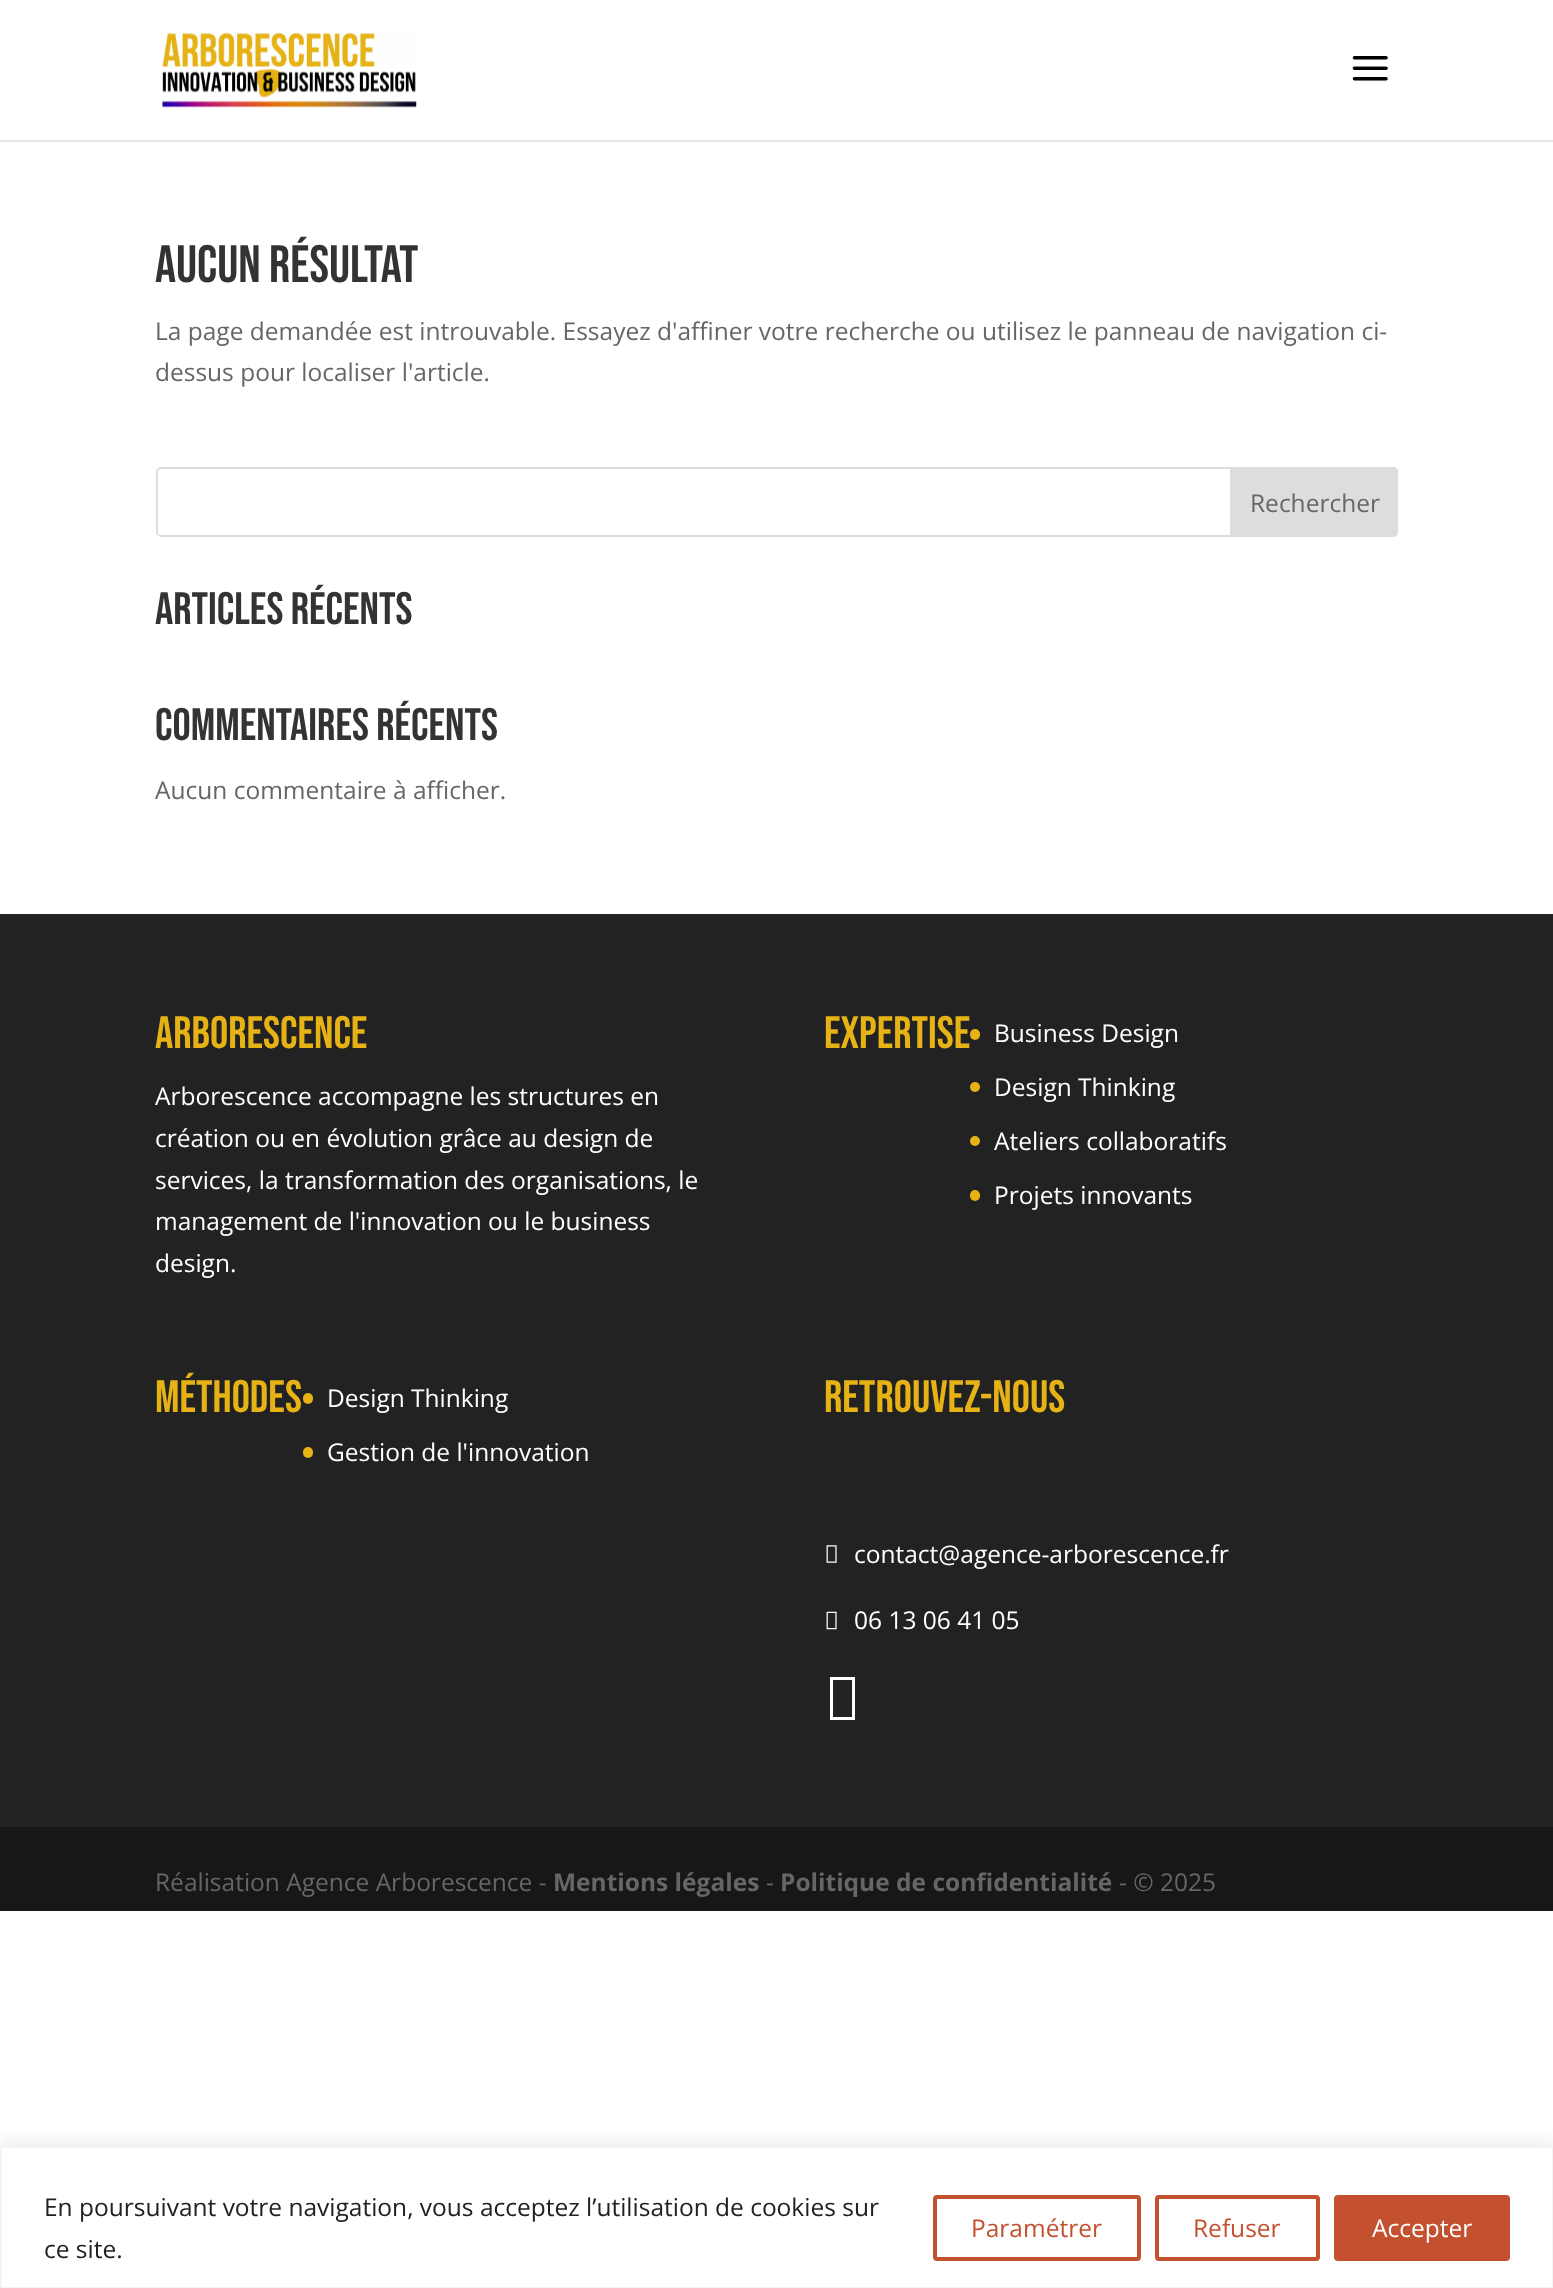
async function draw(canvas) {
  canvas.width = 1553
  canvas.height = 2288
  const ctx = canvas.getContext('2d')
  ctx.miterLimit = 4
  ctx.fontKerning = 'normal'
  async function loadImage(src) {
    const img = new Image()
    img.src = src
    await img.decode()
    return img
  }

  ctx.fillStyle = '#fff'
  ctx.fillRect(0, 0, 1553, 2288)
  ctx.fillStyle = '#e6e6e6'
  ctx.fillRect(0, 140, 1553, 2)
  ctx.drawImage(await loadImage('image0.png'), 162, 32, 255, 76)
  ctx.drawImage(await loadImage('image1.png'), 1352, 56, 36, 25)
  ctx.font = '52.5px Bebas Neue'
  ctx.fillStyle = '#333'
  ctx.fillText('Aucun résultat', 155, 282)
  ctx.font = '24.5px Open Sans'
  ctx.fillStyle = '#666'
  ctx.fillText('La page demandée est introuvable. Essayez d\'affiner votre recherche ou utilisez le panneau de navigation ci-', 155, 340)
  ctx.fillText('dessus pour localiser l\'article.', 155, 381)
  ctx.beginPath()
  ctx.roundRect(157, 468, 1240, 68, 4)
  ctx.strokeStyle = '#ddd'
  ctx.lineWidth = 2
  ctx.stroke()
  ctx.fillStyle = '#ddd'
  ctx.beginPath()
  ctx.roundRect(1231, 468, 166, 68, [0, 4, 4, 0])
  ctx.fill()
  ctx.stroke()
  ctx.fillStyle = '#666'
  ctx.fillText('Rechercher', 1250, 512)
  ctx.font = '45.5px Bebas Neue'
  ctx.fillStyle = '#333'
  ctx.fillText('Articles récents', 155, 624)
  ctx.fillText('Commentaires récents', 155, 740)
  ctx.font = '24.5px Open Sans'
  ctx.fillStyle = '#666'
  ctx.fillText('Aucun commentaire à afficher.', 155, 799)
  ctx.fillStyle = '#222'
  ctx.fillRect(0, 914, 1553, 913)
  ctx.font = '45.5px Bebas Neue'
  ctx.fillStyle = '#e6b215'
  ctx.fillText('Arborescence', 155, 1048)
  ctx.font = '24.5px Open Sans'
  ctx.fillStyle = '#fff'
  ctx.fillText('Arborescence accompagne les structures en', 155, 1105)
  ctx.fillText('création ou en évolution grâce au design de', 155, 1147)
  ctx.fillText('services, la transformation des organisations, le', 155, 1189)
  ctx.fillText('management de l\'innovation ou le business', 155, 1230)
  ctx.fillText('design.', 155, 1272)
  ctx.font = '45.5px Bebas Neue'
  ctx.fillStyle = '#e6b215'
  ctx.fillText('Expertise', 824, 1048)
  ctx.beginPath()
  ctx.roundRect(970, 1029, 10, 11, 5)
  ctx.fill()
  ctx.font = '24.5px Open Sans'
  ctx.fillStyle = '#fff'
  ctx.fillText('Business Design', 994, 1042)
  ctx.fillStyle = '#e6b215'
  ctx.beginPath()
  ctx.arc(975, 1087, 5, 0, 2 * Math.PI)
  ctx.fill()
  ctx.fillStyle = '#fff'
  ctx.fillText('Design Thinking', 994, 1096)
  ctx.fillStyle = '#e6b215'
  ctx.beginPath()
  ctx.arc(975, 1141, 5, 0, 2 * Math.PI)
  ctx.fill()
  ctx.fillStyle = '#fff'
  ctx.fillText('Ateliers collaboratifs', 994, 1150)
  ctx.fillStyle = '#e6b215'
  ctx.beginPath()
  ctx.roundRect(970, 1190, 10, 11, 5)
  ctx.fill()
  ctx.fillStyle = '#fff'
  ctx.fillText('Projets innovants', 994, 1204)
  ctx.font = '45.5px Bebas Neue'
  ctx.fillStyle = '#e6b215'
  ctx.fillText('Méthodes', 155, 1412)
  ctx.beginPath()
  ctx.roundRect(303, 1393, 10, 11, 5)
  ctx.fill()
  ctx.font = '24.5px Open Sans'
  ctx.fillStyle = '#fff'
  ctx.fillText('Design Thinking', 327, 1407)
  ctx.fillStyle = '#e6b215'
  ctx.beginPath()
  ctx.roundRect(303, 1447, 10, 11, 5)
  ctx.fill()
  ctx.fillStyle = '#fff'
  ctx.fillText('Gestion de l\'innovation', 327, 1461)
  ctx.font = '45.5px Bebas Neue'
  ctx.fillStyle = '#e6b215'
  ctx.fillText('Retrouvez-nous', 824, 1412)
  ctx.drawImage(await loadImage('image2.png'), 826, 1545, 11, 18)
  ctx.font = '24.5px Open Sans'
  ctx.fillStyle = '#fff'
  ctx.fillText('contact@agence-arborescence.fr', 854, 1563)
  ctx.drawImage(await loadImage('image3.png'), 826, 1611, 11, 19)
  ctx.fillText('06 13 06 41 05', 854, 1629)
  ctx.beginPath()
  ctx.moveTo(830, 1720)
  ctx.lineTo(830, 1677)
  ctx.lineTo(855, 1677)
  ctx.lineTo(855, 1720)
  ctx.closePath()
  ctx.moveTo(833, 1717)
  ctx.lineTo(852, 1717)
  ctx.lineTo(852, 1680)
  ctx.lineTo(833, 1680)
  ctx.closePath()
  ctx.fill()
  ctx.fillStyle = '#171717'
  ctx.fillRect(0, 1827, 1553, 84)
  ctx.fillStyle = '#666'
  ctx.fillText('Réalisation Agence Arborescence -', 155, 1891)
  ctx.font = 'bold 24.5px Open Sans'
  ctx.fillText('Mentions légales', 553, 1891)
  ctx.font = '24.5px Open Sans'
  ctx.fillText('-', 766, 1891)
  ctx.font = 'bold 24.5px Open Sans'
  ctx.fillText('Politique de confidentialité', 780, 1891)
  ctx.font = '24.5px Open Sans'
  ctx.fillText('- © 2025', 1119, 1891)
  ctx.save()
  ctx.beginPath()
  ctx.rect(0, 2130, 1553, 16)
  ctx.clip()
  ctx.fillStyle = '#acabab4d'
  ctx.filter = 'blur(9px)'
  ctx.beginPath()
  ctx.rect(0, 2144, 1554, 143)
  ctx.fill()
  ctx.filter = 'none'
  ctx.restore()
  ctx.strokeStyle = '#f4f4f4'
  ctx.strokeRect(1, 2147, 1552, 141)
  ctx.fillStyle = '#212121'
  ctx.fillText('En poursuivant votre navigation, vous acceptez l’utilisation de cookies sur', 44, 2216)
  ctx.fillText('ce site.', 44, 2258)
  ctx.beginPath()
  ctx.roundRect(935, 2197, 204, 62, 2)
  ctx.strokeStyle = '#c3512f'
  ctx.lineWidth = 4
  ctx.stroke()
  ctx.fillStyle = '#c3512f'
  ctx.fillText('Paramétrer', 971, 2237)
  ctx.beginPath()
  ctx.roundRect(1157, 2197, 161, 62, 2)
  ctx.stroke()
  ctx.fillText('Refuser', 1193, 2237)
  ctx.beginPath()
  ctx.roundRect(1336, 2197, 172, 62, 2)
  ctx.fill()
  ctx.stroke()
  ctx.fillStyle = '#fff'
  ctx.fillText('Accepter', 1372, 2237)
}

draw(document.querySelector('canvas'))
